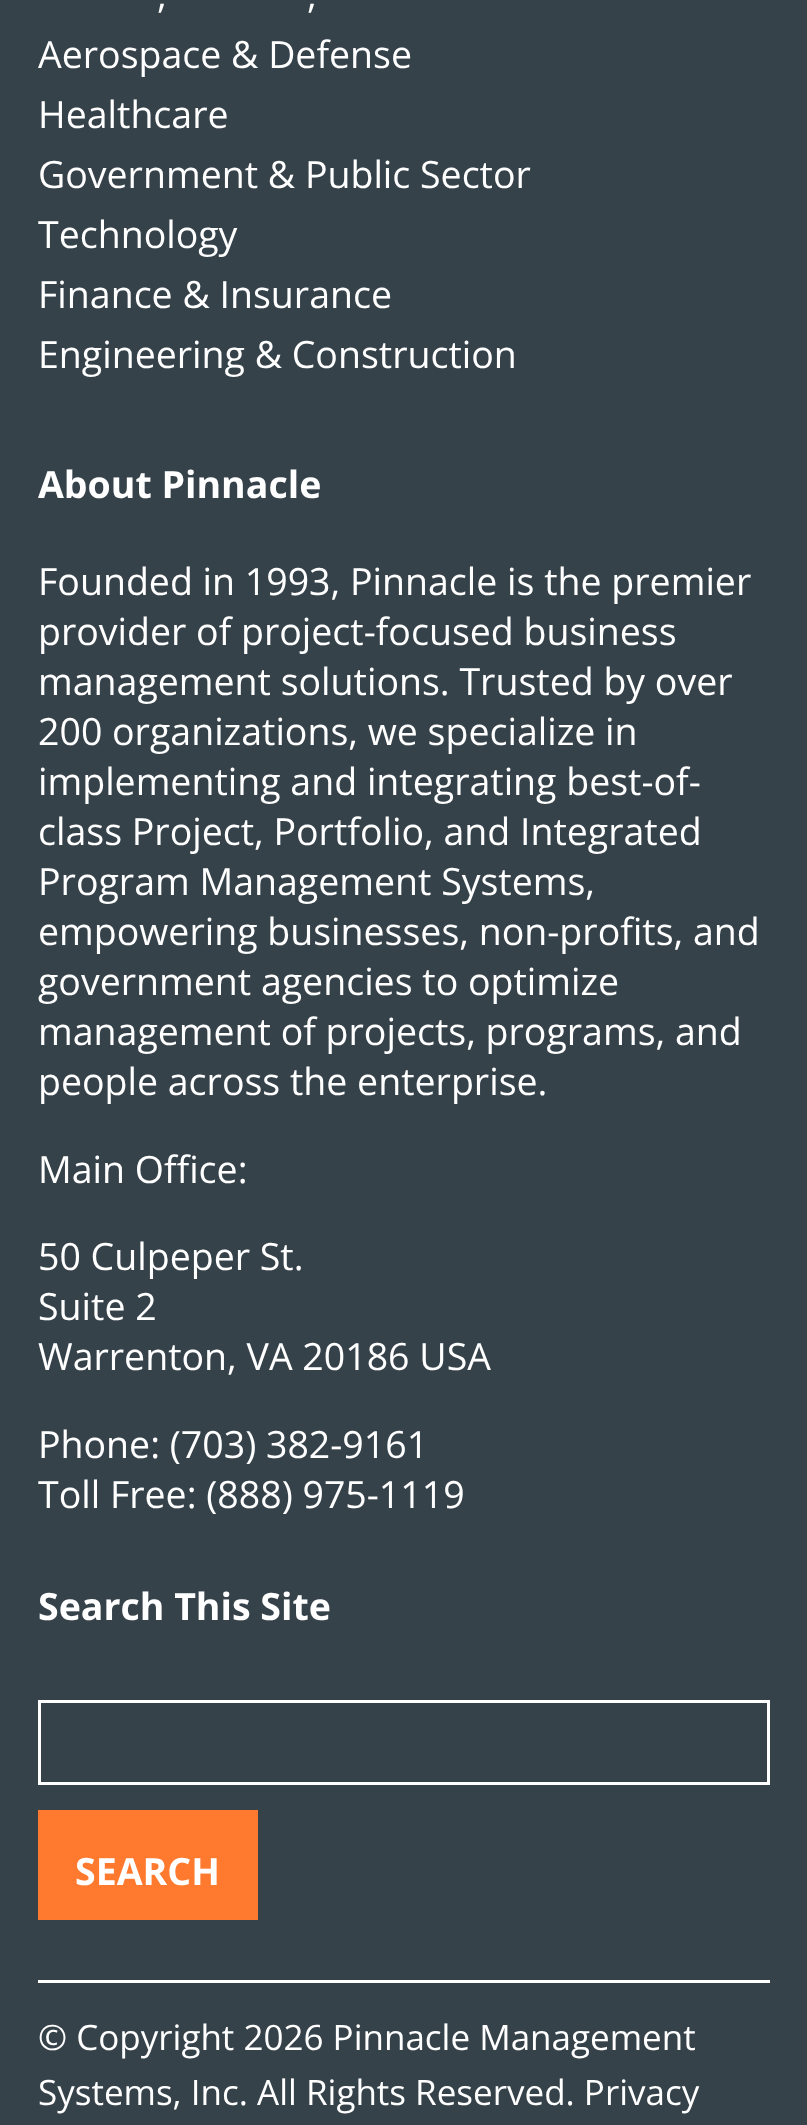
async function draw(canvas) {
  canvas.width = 807
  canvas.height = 2125
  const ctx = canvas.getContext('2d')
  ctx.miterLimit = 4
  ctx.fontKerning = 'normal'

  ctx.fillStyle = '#36424a'
  ctx.fillRect(0, 0, 807, 2125)
  ctx.font = '37.5px Open Sans'
  ctx.fillStyle = '#fff'
  ctx.fillText(',', 157, 8)
  ctx.fillText(',', 307, 8)
  ctx.fillText('Aerospace & Defense', 38, 68)
  ctx.fillText('Healthcare', 38, 128)
  ctx.fillText('Government & Public Sector', 38, 188)
  ctx.fillText('Technology', 38, 248)
  ctx.fillText('Finance & Insurance', 38, 308)
  ctx.fillText('Engineering & Construction', 38, 368)
  ctx.font = 'bold 37.5px Open Sans'
  ctx.fillText('About Pinnacle', 38, 498)
  ctx.font = '37.5px Open Sans'
  ctx.fillText('Founded in 1993, Pinnacle is the premier', 38, 595)
  ctx.fillText('provider of project-focused business', 38, 645)
  ctx.fillText('management solutions. Trusted by over', 38, 695)
  ctx.fillText('200 organizations, we specialize in', 38, 745)
  ctx.fillText('implementing and integrating best-of-', 38, 795)
  ctx.fillText('class Project, Portfolio, and Integrated', 38, 845)
  ctx.fillText('Program Management Systems,', 38, 895)
  ctx.fillText('empowering businesses, non-profits, and', 38, 945)
  ctx.fillText('government agencies to optimize', 38, 995)
  ctx.fillText('management of projects, programs, and', 38, 1045)
  ctx.fillText('people across the enterprise.', 38, 1095)
  ctx.fillText('Main Office:', 38, 1183)
  ctx.fillText('50 Culpeper St.', 38, 1270)
  ctx.fillText('Suite 2', 38, 1320)
  ctx.fillText('Warrenton, VA 20186 USA', 38, 1370)
  ctx.fillText('Phone: (703) 382-9161', 38, 1458)
  ctx.fillText('Toll Free: (888) 975-1119', 38, 1508)
  ctx.font = 'bold 37.5px Open Sans'
  ctx.fillText('Search This Site', 38, 1620)
  ctx.strokeStyle = '#fff'
  ctx.lineWidth = 3
  ctx.strokeRect(39.5, 1701.5, 729, 82)
  ctx.fillStyle = '#ff792e'
  ctx.fillRect(38, 1810, 220, 110)
  ctx.fillStyle = '#fff'
  ctx.fillText('SEARCH', 75, 1885)
  ctx.fillRect(38, 1980, 732, 3)
  ctx.font = '35px Open Sans'
  ctx.fillText('© Copyright 2026 Pinnacle Management', 38, 2050)
  ctx.fillText('Systems, Inc. All Rights Reserved. Privacy', 38, 2105)
}

draw(document.querySelector('canvas'))
